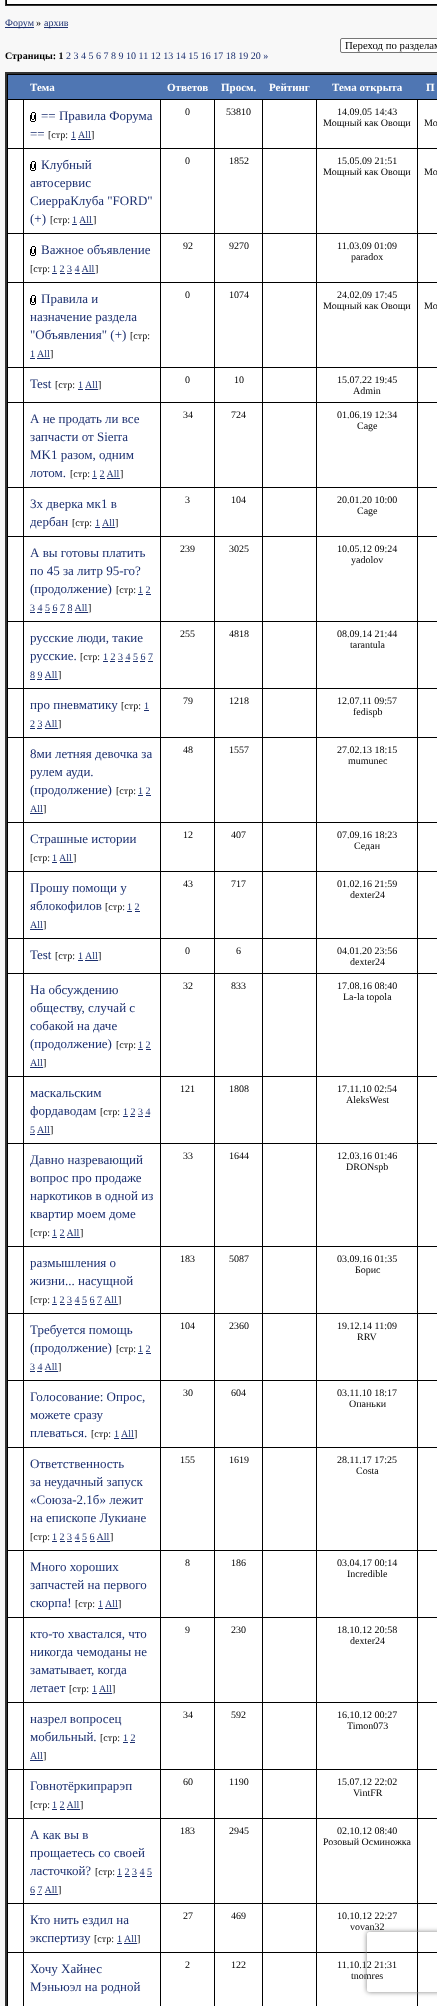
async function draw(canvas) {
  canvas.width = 437
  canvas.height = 2006
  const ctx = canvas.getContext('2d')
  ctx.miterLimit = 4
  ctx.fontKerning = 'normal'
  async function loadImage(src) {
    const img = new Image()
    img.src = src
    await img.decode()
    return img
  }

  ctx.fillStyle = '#f8f8f8'
  ctx.fillRect(0, 0, 437, 2006)
  ctx.fillStyle = '#333'
  ctx.fillRect(5, 0, 432, 6)
  ctx.fillStyle = '#000'
  ctx.fillRect(6, 0, 431, 5)
  ctx.fillStyle = '#fff'
  ctx.fillRect(7, 0, 430, 4)
  ctx.fillStyle = '#1c3070'
  ctx.fillRect(5, 27, 29, 1)
  ctx.font = '10px Liberation Serif'
  ctx.fillText('Форум', 5, 26)
  ctx.fillStyle = '#000'
  ctx.fillText('»', 36, 26)
  ctx.fillStyle = '#1c3070'
  ctx.fillRect(44, 27, 24, 1)
  ctx.fillText('архив', 44, 26)
  ctx.font = 'bold 10px Liberation Serif'
  ctx.fillStyle = '#000'
  ctx.fillText('Страницы: 1', 5, 59)
  ctx.font = '10px Liberation Serif'
  ctx.fillStyle = '#1c3070'
  ctx.fillText('2 3 4 5 6 7 8 9 10 11 12 13 14 15 16 17 18 19 20 »', 66, 59)
  ctx.fillStyle = '#fff'
  ctx.beginPath()
  ctx.roundRect(340.5, 38.5, 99, 14, 1.5)
  ctx.fill()
  ctx.strokeStyle = '#767676'
  ctx.stroke()
  ctx.font = '10.75px Liberation Serif'
  ctx.fillStyle = '#000'
  ctx.fillText('Переход по разделам', 345, 49)
  ctx.fillStyle = '#333'
  ctx.fillRect(5, 72, 432, 1934)
  ctx.fillStyle = '#000'
  ctx.fillRect(7, 74, 430, 1932)
  ctx.fillStyle = '#4f76b3'
  ctx.fillRect(8, 75, 429, 24)
  ctx.font = 'bold 11px Liberation Serif'
  ctx.fillStyle = '#fff'
  ctx.fillText('Тема', 30, 91)
  ctx.fillText('Ответов', 167, 91)
  ctx.fillText('Просм.', 221, 91)
  ctx.fillText('Рейтинг', 269, 91)
  ctx.fillText('Тема открыта', 332, 91)
  ctx.fillText('П', 426, 91)
  ctx.fillRect(8, 100, 15, 48)
  ctx.fillRect(24, 100, 136, 48)
  ctx.drawImage(await loadImage('image0.png'), 30, 112, 6, 10)
  ctx.font = '13px Liberation Serif'
  ctx.fillStyle = '#1c3070'
  ctx.fillText('== Правила Форума', 41, 120)
  ctx.fillText('==', 30, 138)
  ctx.font = '10px Liberation Serif'
  ctx.fillStyle = '#000'
  ctx.fillText('[стр:', 48, 138)
  ctx.fillStyle = '#1c3070'
  ctx.fillRect(71, 139, 5, 1)
  ctx.fillText('1 All', 71, 138)
  ctx.fillStyle = '#000'
  ctx.fillText(']', 91, 138)
  ctx.fillStyle = '#1c3070'
  ctx.fillRect(78, 139, 13, 1)
  ctx.fillStyle = '#fff'
  ctx.fillRect(161, 100, 53, 48)
  ctx.fillStyle = '#000'
  ctx.fillText('0', 185, 115)
  ctx.fillStyle = '#fff'
  ctx.fillRect(215, 100, 47, 48)
  ctx.fillStyle = '#000'
  ctx.fillText('53810', 226, 115)
  ctx.fillStyle = '#fff'
  ctx.fillRect(263, 100, 53, 48)
  ctx.fillRect(317, 100, 100, 48)
  ctx.fillStyle = '#000'
  ctx.fillText('14.09.05 14:43', 337, 115)
  ctx.fillText('Мощный как Овощи', 323, 126)
  ctx.fillStyle = '#fff'
  ctx.fillRect(418, 100, 19, 48)
  ctx.fillStyle = '#000'
  ctx.fillText('Мо', 424, 126)
  ctx.fillStyle = '#fff'
  ctx.fillRect(8, 149, 15, 84)
  ctx.fillRect(24, 149, 136, 84)
  ctx.drawImage(await loadImage('image0.png'), 30, 161, 6, 10)
  ctx.font = '13px Liberation Serif'
  ctx.fillStyle = '#1c3070'
  ctx.fillText('Клубный', 41, 169)
  ctx.fillText('автосервис', 30, 187)
  ctx.fillText('СиерраКлуба "FORD"', 30, 205)
  ctx.fillText('(+)', 30, 223)
  ctx.font = '10px Liberation Serif'
  ctx.fillStyle = '#000'
  ctx.fillText('[стр:', 50, 223)
  ctx.fillStyle = '#1c3070'
  ctx.fillRect(72, 224, 5, 1)
  ctx.fillText('1 All', 72, 223)
  ctx.fillRect(80, 224, 13, 1)
  ctx.fillStyle = '#000'
  ctx.fillText(']', 93, 223)
  ctx.fillStyle = '#fff'
  ctx.fillRect(161, 149, 53, 84)
  ctx.fillStyle = '#000'
  ctx.fillText('0', 185, 164)
  ctx.fillStyle = '#fff'
  ctx.fillRect(215, 149, 47, 84)
  ctx.fillStyle = '#000'
  ctx.fillText('1852', 229, 164)
  ctx.fillStyle = '#fff'
  ctx.fillRect(263, 149, 53, 84)
  ctx.fillRect(317, 149, 100, 84)
  ctx.fillStyle = '#000'
  ctx.fillText('15.05.09 21:51', 337, 164)
  ctx.fillText('Мощный как Овощи', 323, 175)
  ctx.fillStyle = '#fff'
  ctx.fillRect(418, 149, 19, 84)
  ctx.fillStyle = '#000'
  ctx.fillText('Мо', 424, 175)
  ctx.fillStyle = '#fff'
  ctx.fillRect(8, 234, 15, 48)
  ctx.fillRect(24, 234, 136, 48)
  ctx.drawImage(await loadImage('image0.png'), 30, 246, 6, 10)
  ctx.font = '13px Liberation Serif'
  ctx.fillStyle = '#1c3070'
  ctx.fillText('Важное объявление', 41, 254)
  ctx.font = '10px Liberation Serif'
  ctx.fillStyle = '#000'
  ctx.fillText('[стр:', 30, 272)
  ctx.fillStyle = '#1c3070'
  ctx.fillText('1 2 3 4 All', 52, 272)
  ctx.fillRect(52, 273, 5, 1)
  ctx.fillRect(60, 273, 5, 1)
  ctx.fillRect(67, 273, 5, 1)
  ctx.fillRect(75, 273, 5, 1)
  ctx.fillStyle = '#000'
  ctx.fillText(']', 95, 272)
  ctx.fillStyle = '#1c3070'
  ctx.fillRect(82, 273, 13, 1)
  ctx.fillStyle = '#fff'
  ctx.fillRect(161, 234, 53, 48)
  ctx.fillStyle = '#000'
  ctx.fillText('92', 183, 249)
  ctx.fillStyle = '#fff'
  ctx.fillRect(215, 234, 47, 48)
  ctx.fillStyle = '#000'
  ctx.fillText('9270', 229, 249)
  ctx.fillStyle = '#fff'
  ctx.fillRect(263, 234, 53, 48)
  ctx.fillRect(317, 234, 100, 48)
  ctx.fillStyle = '#000'
  ctx.fillText('11.03.09 01:09', 337, 249)
  ctx.fillText('paradox', 351, 260)
  ctx.fillStyle = '#fff'
  ctx.fillRect(418, 234, 19, 48)
  ctx.fillRect(8, 283, 15, 84)
  ctx.fillRect(24, 283, 136, 84)
  ctx.drawImage(await loadImage('image0.png'), 30, 295, 6, 10)
  ctx.font = '13px Liberation Serif'
  ctx.fillStyle = '#1c3070'
  ctx.fillText('Правила и', 41, 303)
  ctx.fillText('назначение раздела', 30, 321)
  ctx.fillText('"Объявления" (+)', 30, 339)
  ctx.font = '10px Liberation Serif'
  ctx.fillStyle = '#000'
  ctx.fillText('[стр:', 130, 339)
  ctx.fillStyle = '#1c3070'
  ctx.fillText('1 All', 30, 357)
  ctx.fillRect(30, 358, 5, 1)
  ctx.fillStyle = '#000'
  ctx.fillText(']', 50, 357)
  ctx.fillStyle = '#1c3070'
  ctx.fillRect(37, 358, 13, 1)
  ctx.fillStyle = '#fff'
  ctx.fillRect(161, 283, 53, 84)
  ctx.fillStyle = '#000'
  ctx.fillText('0', 185, 298)
  ctx.fillStyle = '#fff'
  ctx.fillRect(215, 283, 47, 84)
  ctx.fillStyle = '#000'
  ctx.fillText('1074', 229, 298)
  ctx.fillStyle = '#fff'
  ctx.fillRect(263, 283, 53, 84)
  ctx.fillRect(317, 283, 100, 84)
  ctx.fillStyle = '#000'
  ctx.fillText('24.02.09 17:45', 337, 298)
  ctx.fillText('Мощный как Овощи', 323, 309)
  ctx.fillStyle = '#fff'
  ctx.fillRect(418, 283, 19, 84)
  ctx.fillStyle = '#000'
  ctx.fillText('Мо', 424, 309)
  ctx.fillStyle = '#fff'
  ctx.fillRect(8, 368, 15, 34)
  ctx.fillRect(24, 368, 136, 34)
  ctx.font = '13px Liberation Serif'
  ctx.fillStyle = '#1c3070'
  ctx.fillText('Test', 30, 388)
  ctx.font = '10px Liberation Serif'
  ctx.fillStyle = '#000'
  ctx.fillText('[стр:', 55, 388)
  ctx.fillStyle = '#1c3070'
  ctx.fillRect(78, 389, 5, 1)
  ctx.fillText('1 All', 78, 388)
  ctx.fillStyle = '#000'
  ctx.fillText(']', 98, 388)
  ctx.fillStyle = '#1c3070'
  ctx.fillRect(85, 389, 13, 1)
  ctx.fillStyle = '#fff'
  ctx.fillRect(161, 368, 53, 34)
  ctx.fillStyle = '#000'
  ctx.fillText('0', 185, 383)
  ctx.fillStyle = '#fff'
  ctx.fillRect(215, 368, 47, 34)
  ctx.fillStyle = '#000'
  ctx.fillText('10', 234, 383)
  ctx.fillStyle = '#fff'
  ctx.fillRect(263, 368, 53, 34)
  ctx.fillRect(317, 368, 100, 34)
  ctx.fillStyle = '#000'
  ctx.fillText('15.07.22 19:45', 337, 383)
  ctx.fillText('Admin', 353, 394)
  ctx.fillStyle = '#fff'
  ctx.fillRect(418, 368, 19, 34)
  ctx.fillRect(8, 403, 15, 84)
  ctx.fillRect(24, 403, 136, 84)
  ctx.font = '13px Liberation Serif'
  ctx.fillStyle = '#1c3070'
  ctx.fillText('А не продать ли все', 30, 423)
  ctx.fillText('запчасти от Sierra', 30, 441)
  ctx.fillText('MK1 разом, одним', 30, 459)
  ctx.fillText('лотом.', 30, 477)
  ctx.font = '10px Liberation Serif'
  ctx.fillStyle = '#000'
  ctx.fillText('[стр:', 70, 477)
  ctx.fillStyle = '#1c3070'
  ctx.fillRect(92, 478, 5, 1)
  ctx.fillText('1 2 All', 92, 477)
  ctx.fillRect(100, 478, 5, 1)
  ctx.fillStyle = '#000'
  ctx.fillText(']', 120, 477)
  ctx.fillStyle = '#1c3070'
  ctx.fillRect(107, 478, 13, 1)
  ctx.fillStyle = '#fff'
  ctx.fillRect(161, 403, 53, 84)
  ctx.fillStyle = '#000'
  ctx.fillText('34', 183, 418)
  ctx.fillStyle = '#fff'
  ctx.fillRect(215, 403, 47, 84)
  ctx.fillStyle = '#000'
  ctx.fillText('724', 231, 418)
  ctx.fillStyle = '#fff'
  ctx.fillRect(263, 403, 53, 84)
  ctx.fillRect(317, 403, 100, 84)
  ctx.fillStyle = '#000'
  ctx.fillText('01.06.19 12:34', 337, 418)
  ctx.fillText('Cage', 357, 429)
  ctx.fillStyle = '#fff'
  ctx.fillRect(418, 403, 19, 84)
  ctx.fillRect(8, 488, 15, 48)
  ctx.fillRect(24, 488, 136, 48)
  ctx.font = '13px Liberation Serif'
  ctx.fillStyle = '#1c3070'
  ctx.fillText('3х дверка мк1 в', 30, 508)
  ctx.fillText('дербан', 30, 526)
  ctx.font = '10px Liberation Serif'
  ctx.fillStyle = '#000'
  ctx.fillText('[стр:', 72, 526)
  ctx.fillStyle = '#1c3070'
  ctx.fillRect(95, 527, 5, 1)
  ctx.fillText('1 All', 95, 526)
  ctx.fillStyle = '#000'
  ctx.fillText(']', 115, 526)
  ctx.fillStyle = '#1c3070'
  ctx.fillRect(102, 527, 13, 1)
  ctx.fillStyle = '#fff'
  ctx.fillRect(161, 488, 53, 48)
  ctx.fillStyle = '#000'
  ctx.fillText('3', 185, 503)
  ctx.fillStyle = '#fff'
  ctx.fillRect(215, 488, 47, 48)
  ctx.fillStyle = '#000'
  ctx.fillText('104', 231, 503)
  ctx.fillStyle = '#fff'
  ctx.fillRect(263, 488, 53, 48)
  ctx.fillRect(317, 488, 100, 48)
  ctx.fillStyle = '#000'
  ctx.fillText('20.01.20 10:00', 337, 503)
  ctx.fillText('Cage', 357, 514)
  ctx.fillStyle = '#fff'
  ctx.fillRect(418, 488, 19, 48)
  ctx.fillRect(8, 537, 15, 84)
  ctx.fillRect(24, 537, 136, 84)
  ctx.font = '13px Liberation Serif'
  ctx.fillStyle = '#1c3070'
  ctx.fillText('А вы готовы платить', 30, 557)
  ctx.fillText('по 45 за литр 95-го?', 30, 575)
  ctx.fillText('(продолжение)', 30, 593)
  ctx.font = '10px Liberation Serif'
  ctx.fillStyle = '#000'
  ctx.fillText('[стр:', 116, 593)
  ctx.fillStyle = '#1c3070'
  ctx.fillRect(138, 594, 5, 1)
  ctx.fillText('1 2', 138, 593)
  ctx.fillRect(146, 594, 5, 1)
  ctx.fillText('3 4 5 6 7 8 All', 30, 611)
  ctx.fillRect(30, 612, 5, 1)
  ctx.fillRect(37, 612, 5, 1)
  ctx.fillRect(45, 612, 5, 1)
  ctx.fillRect(52, 612, 5, 1)
  ctx.fillRect(60, 612, 5, 1)
  ctx.fillRect(67, 612, 5, 1)
  ctx.fillRect(75, 612, 13, 1)
  ctx.fillStyle = '#000'
  ctx.fillText(']', 88, 611)
  ctx.fillStyle = '#fff'
  ctx.fillRect(161, 537, 53, 84)
  ctx.fillStyle = '#000'
  ctx.fillText('239', 180, 552)
  ctx.fillStyle = '#fff'
  ctx.fillRect(215, 537, 47, 84)
  ctx.fillStyle = '#000'
  ctx.fillText('3025', 229, 552)
  ctx.fillStyle = '#fff'
  ctx.fillRect(263, 537, 53, 84)
  ctx.fillRect(317, 537, 100, 84)
  ctx.fillStyle = '#000'
  ctx.fillText('10.05.12 09:24', 337, 552)
  ctx.fillText('yadolov', 351, 563)
  ctx.fillStyle = '#fff'
  ctx.fillRect(418, 537, 19, 84)
  ctx.fillRect(8, 622, 15, 66)
  ctx.fillRect(24, 622, 136, 66)
  ctx.font = '13px Liberation Serif'
  ctx.fillStyle = '#1c3070'
  ctx.fillText('русские люди, такие', 30, 642)
  ctx.fillText('русские.', 30, 660)
  ctx.font = '10px Liberation Serif'
  ctx.fillStyle = '#000'
  ctx.fillText('[стр:', 80, 660)
  ctx.fillStyle = '#1c3070'
  ctx.fillText('1 2 3 4 5 6 7', 103, 660)
  ctx.fillRect(103, 661, 5, 1)
  ctx.fillRect(110, 661, 5, 1)
  ctx.fillRect(118, 661, 5, 1)
  ctx.fillRect(125, 661, 5, 1)
  ctx.fillRect(133, 661, 5, 1)
  ctx.fillRect(140, 661, 5, 1)
  ctx.fillRect(148, 661, 5, 1)
  ctx.fillText('8 9 All', 30, 678)
  ctx.fillRect(30, 679, 5, 1)
  ctx.fillRect(37, 679, 5, 1)
  ctx.fillRect(45, 679, 13, 1)
  ctx.fillStyle = '#000'
  ctx.fillText(']', 58, 678)
  ctx.fillStyle = '#fff'
  ctx.fillRect(161, 622, 53, 66)
  ctx.fillStyle = '#000'
  ctx.fillText('255', 180, 637)
  ctx.fillStyle = '#fff'
  ctx.fillRect(215, 622, 47, 66)
  ctx.fillStyle = '#000'
  ctx.fillText('4818', 229, 637)
  ctx.fillStyle = '#fff'
  ctx.fillRect(263, 622, 53, 66)
  ctx.fillRect(317, 622, 100, 66)
  ctx.fillStyle = '#000'
  ctx.fillText('08.09.14 21:44', 337, 637)
  ctx.fillText('tarantula', 350, 648)
  ctx.fillStyle = '#fff'
  ctx.fillRect(418, 622, 19, 66)
  ctx.fillRect(8, 689, 15, 48)
  ctx.fillRect(24, 689, 136, 48)
  ctx.font = '13px Liberation Serif'
  ctx.fillStyle = '#1c3070'
  ctx.fillText('про пневматику', 30, 709)
  ctx.font = '10px Liberation Serif'
  ctx.fillStyle = '#000'
  ctx.fillText('[стр:', 121, 709)
  ctx.fillStyle = '#1c3070'
  ctx.fillRect(144, 710, 5, 1)
  ctx.fillText('1', 144, 709)
  ctx.fillText('2 3 All', 30, 727)
  ctx.fillRect(30, 728, 5, 1)
  ctx.fillRect(37, 728, 5, 1)
  ctx.fillRect(45, 728, 13, 1)
  ctx.fillStyle = '#000'
  ctx.fillText(']', 58, 727)
  ctx.fillStyle = '#fff'
  ctx.fillRect(161, 689, 53, 48)
  ctx.fillStyle = '#000'
  ctx.fillText('79', 183, 704)
  ctx.fillStyle = '#fff'
  ctx.fillRect(215, 689, 47, 48)
  ctx.fillStyle = '#000'
  ctx.fillText('1218', 229, 704)
  ctx.fillStyle = '#fff'
  ctx.fillRect(263, 689, 53, 48)
  ctx.fillRect(317, 689, 100, 48)
  ctx.fillStyle = '#000'
  ctx.fillText('12.07.11 09:57', 337, 704)
  ctx.fillText('fedispb', 353, 715)
  ctx.fillStyle = '#fff'
  ctx.fillRect(418, 689, 19, 48)
  ctx.fillRect(8, 738, 15, 84)
  ctx.fillRect(24, 738, 136, 84)
  ctx.font = '13px Liberation Serif'
  ctx.fillStyle = '#1c3070'
  ctx.fillText('8ми летняя девочка за', 30, 758)
  ctx.fillText('рулем ауди.', 30, 776)
  ctx.fillText('(продолжение)', 30, 794)
  ctx.font = '10px Liberation Serif'
  ctx.fillStyle = '#000'
  ctx.fillText('[стр:', 116, 794)
  ctx.fillStyle = '#1c3070'
  ctx.fillRect(138, 795, 5, 1)
  ctx.fillText('1 2', 138, 794)
  ctx.fillRect(146, 795, 5, 1)
  ctx.fillText('All', 30, 812)
  ctx.fillRect(30, 813, 13, 1)
  ctx.fillStyle = '#000'
  ctx.fillText(']', 43, 812)
  ctx.fillStyle = '#fff'
  ctx.fillRect(161, 738, 53, 84)
  ctx.fillStyle = '#000'
  ctx.fillText('48', 183, 753)
  ctx.fillStyle = '#fff'
  ctx.fillRect(215, 738, 47, 84)
  ctx.fillStyle = '#000'
  ctx.fillText('1557', 229, 753)
  ctx.fillStyle = '#fff'
  ctx.fillRect(263, 738, 53, 84)
  ctx.fillRect(317, 738, 100, 84)
  ctx.fillStyle = '#000'
  ctx.fillText('27.02.13 18:15', 337, 753)
  ctx.fillText('mumunec', 348, 764)
  ctx.fillStyle = '#fff'
  ctx.fillRect(418, 738, 19, 84)
  ctx.fillRect(8, 823, 15, 48)
  ctx.fillRect(24, 823, 136, 48)
  ctx.font = '13px Liberation Serif'
  ctx.fillStyle = '#1c3070'
  ctx.fillText('Страшные истории', 30, 843)
  ctx.font = '10px Liberation Serif'
  ctx.fillStyle = '#000'
  ctx.fillText('[стр:', 30, 861)
  ctx.fillStyle = '#1c3070'
  ctx.fillRect(52, 862, 5, 1)
  ctx.fillText('1 All', 52, 861)
  ctx.fillRect(60, 862, 13, 1)
  ctx.fillStyle = '#000'
  ctx.fillText(']', 73, 861)
  ctx.fillStyle = '#fff'
  ctx.fillRect(161, 823, 53, 48)
  ctx.fillStyle = '#000'
  ctx.fillText('12', 183, 838)
  ctx.fillStyle = '#fff'
  ctx.fillRect(215, 823, 47, 48)
  ctx.fillStyle = '#000'
  ctx.fillText('407', 231, 838)
  ctx.fillStyle = '#fff'
  ctx.fillRect(263, 823, 53, 48)
  ctx.fillRect(317, 823, 100, 48)
  ctx.fillStyle = '#000'
  ctx.fillText('07.09.16 18:23', 337, 838)
  ctx.fillText('Седан', 354, 849)
  ctx.fillStyle = '#fff'
  ctx.fillRect(418, 823, 19, 48)
  ctx.fillRect(8, 872, 15, 66)
  ctx.fillRect(24, 872, 136, 66)
  ctx.font = '13px Liberation Serif'
  ctx.fillStyle = '#1c3070'
  ctx.fillText('Прошу помощи у', 30, 892)
  ctx.fillText('яблокофилов', 30, 910)
  ctx.font = '10px Liberation Serif'
  ctx.fillStyle = '#000'
  ctx.fillText('[стр:', 105, 910)
  ctx.fillStyle = '#1c3070'
  ctx.fillRect(127, 911, 5, 1)
  ctx.fillText('1 2', 127, 910)
  ctx.fillRect(135, 911, 5, 1)
  ctx.fillText('All', 30, 928)
  ctx.fillRect(30, 929, 13, 1)
  ctx.fillStyle = '#000'
  ctx.fillText(']', 43, 928)
  ctx.fillStyle = '#fff'
  ctx.fillRect(161, 872, 53, 66)
  ctx.fillStyle = '#000'
  ctx.fillText('43', 183, 887)
  ctx.fillStyle = '#fff'
  ctx.fillRect(215, 872, 47, 66)
  ctx.fillStyle = '#000'
  ctx.fillText('717', 231, 887)
  ctx.fillStyle = '#fff'
  ctx.fillRect(263, 872, 53, 66)
  ctx.fillRect(317, 872, 100, 66)
  ctx.fillStyle = '#000'
  ctx.fillText('01.02.16 21:59', 337, 887)
  ctx.fillText('dexter24', 350, 898)
  ctx.fillStyle = '#fff'
  ctx.fillRect(418, 872, 19, 66)
  ctx.fillRect(8, 939, 15, 34)
  ctx.fillRect(24, 939, 136, 34)
  ctx.font = '13px Liberation Serif'
  ctx.fillStyle = '#1c3070'
  ctx.fillText('Test', 30, 959)
  ctx.font = '10px Liberation Serif'
  ctx.fillStyle = '#000'
  ctx.fillText('[стр:', 55, 959)
  ctx.fillStyle = '#1c3070'
  ctx.fillRect(78, 960, 5, 1)
  ctx.fillText('1 All', 78, 959)
  ctx.fillStyle = '#000'
  ctx.fillText(']', 98, 959)
  ctx.fillStyle = '#1c3070'
  ctx.fillRect(85, 960, 13, 1)
  ctx.fillStyle = '#fff'
  ctx.fillRect(161, 939, 53, 34)
  ctx.fillStyle = '#000'
  ctx.fillText('0', 185, 954)
  ctx.fillStyle = '#fff'
  ctx.fillRect(215, 939, 47, 34)
  ctx.fillStyle = '#000'
  ctx.fillText('6', 236, 954)
  ctx.fillStyle = '#fff'
  ctx.fillRect(263, 939, 53, 34)
  ctx.fillRect(317, 939, 100, 34)
  ctx.fillStyle = '#000'
  ctx.fillText('04.01.20 23:56', 337, 954)
  ctx.fillText('dexter24', 350, 965)
  ctx.fillStyle = '#fff'
  ctx.fillRect(418, 939, 19, 34)
  ctx.fillRect(8, 974, 15, 102)
  ctx.fillRect(24, 974, 136, 102)
  ctx.font = '13px Liberation Serif'
  ctx.fillStyle = '#1c3070'
  ctx.fillText('На обсуждению', 30, 994)
  ctx.fillText('обществу, случай с', 30, 1012)
  ctx.fillText('собакой на даче', 30, 1030)
  ctx.fillText('(продолжение)', 30, 1048)
  ctx.font = '10px Liberation Serif'
  ctx.fillStyle = '#000'
  ctx.fillText('[стр:', 116, 1048)
  ctx.fillStyle = '#1c3070'
  ctx.fillRect(138, 1049, 5, 1)
  ctx.fillText('1 2', 138, 1048)
  ctx.fillRect(146, 1049, 5, 1)
  ctx.fillText('All', 30, 1066)
  ctx.fillRect(30, 1067, 13, 1)
  ctx.fillStyle = '#000'
  ctx.fillText(']', 43, 1066)
  ctx.fillStyle = '#fff'
  ctx.fillRect(161, 974, 53, 102)
  ctx.fillStyle = '#000'
  ctx.fillText('32', 183, 989)
  ctx.fillStyle = '#fff'
  ctx.fillRect(215, 974, 47, 102)
  ctx.fillStyle = '#000'
  ctx.fillText('833', 231, 989)
  ctx.fillStyle = '#fff'
  ctx.fillRect(263, 974, 53, 102)
  ctx.fillRect(317, 974, 100, 102)
  ctx.fillStyle = '#000'
  ctx.fillText('17.08.16 08:40', 337, 989)
  ctx.fillText('La-la topola', 343, 1000)
  ctx.fillStyle = '#fff'
  ctx.fillRect(418, 974, 19, 102)
  ctx.fillRect(8, 1077, 15, 66)
  ctx.fillRect(24, 1077, 136, 66)
  ctx.font = '13px Liberation Serif'
  ctx.fillStyle = '#1c3070'
  ctx.fillText('мaскaльским', 30, 1097)
  ctx.fillText('фордaводaм', 30, 1115)
  ctx.font = '10px Liberation Serif'
  ctx.fillStyle = '#000'
  ctx.fillText('[стр:', 100, 1115)
  ctx.fillStyle = '#1c3070'
  ctx.fillText('1 2 3 4', 123, 1115)
  ctx.fillRect(123, 1116, 5, 1)
  ctx.fillRect(130, 1116, 5, 1)
  ctx.fillRect(138, 1116, 5, 1)
  ctx.fillRect(145, 1116, 5, 1)
  ctx.fillText('5 All', 30, 1133)
  ctx.fillRect(30, 1134, 5, 1)
  ctx.fillStyle = '#000'
  ctx.fillText(']', 50, 1133)
  ctx.fillStyle = '#1c3070'
  ctx.fillRect(37, 1134, 13, 1)
  ctx.fillStyle = '#fff'
  ctx.fillRect(161, 1077, 53, 66)
  ctx.fillStyle = '#000'
  ctx.fillText('121', 180, 1092)
  ctx.fillStyle = '#fff'
  ctx.fillRect(215, 1077, 47, 66)
  ctx.fillStyle = '#000'
  ctx.fillText('1808', 229, 1092)
  ctx.fillStyle = '#fff'
  ctx.fillRect(263, 1077, 53, 66)
  ctx.fillRect(317, 1077, 100, 66)
  ctx.fillStyle = '#000'
  ctx.fillText('17.11.10 02:54', 337, 1092)
  ctx.fillText('AleksWest', 346, 1103)
  ctx.fillStyle = '#fff'
  ctx.fillRect(418, 1077, 19, 66)
  ctx.fillRect(8, 1144, 15, 102)
  ctx.fillRect(24, 1144, 136, 102)
  ctx.font = '13px Liberation Serif'
  ctx.fillStyle = '#1c3070'
  ctx.fillText('Давно назревающий', 30, 1164)
  ctx.fillText('вопрос про продаже', 30, 1182)
  ctx.fillText('наркотиков в одной из', 30, 1200)
  ctx.fillText('квартир моем доме', 30, 1218)
  ctx.font = '10px Liberation Serif'
  ctx.fillStyle = '#000'
  ctx.fillText('[стр:', 30, 1236)
  ctx.fillStyle = '#1c3070'
  ctx.fillRect(52, 1237, 5, 1)
  ctx.fillText('1 2 All', 52, 1236)
  ctx.fillRect(60, 1237, 5, 1)
  ctx.fillStyle = '#000'
  ctx.fillText(']', 80, 1236)
  ctx.fillStyle = '#1c3070'
  ctx.fillRect(67, 1237, 13, 1)
  ctx.fillStyle = '#fff'
  ctx.fillRect(161, 1144, 53, 102)
  ctx.fillStyle = '#000'
  ctx.fillText('33', 183, 1159)
  ctx.fillStyle = '#fff'
  ctx.fillRect(215, 1144, 47, 102)
  ctx.fillStyle = '#000'
  ctx.fillText('1644', 229, 1159)
  ctx.fillStyle = '#fff'
  ctx.fillRect(263, 1144, 53, 102)
  ctx.fillRect(317, 1144, 100, 102)
  ctx.fillStyle = '#000'
  ctx.fillText('12.03.16 01:46', 337, 1159)
  ctx.fillText('DRONspb', 346, 1170)
  ctx.fillStyle = '#fff'
  ctx.fillRect(418, 1144, 19, 102)
  ctx.fillRect(8, 1247, 15, 66)
  ctx.fillRect(24, 1247, 136, 66)
  ctx.font = '13px Liberation Serif'
  ctx.fillStyle = '#1c3070'
  ctx.fillText('размышления о', 30, 1267)
  ctx.fillText('жизни... насущной', 30, 1285)
  ctx.font = '10px Liberation Serif'
  ctx.fillStyle = '#000'
  ctx.fillText('[стр:', 30, 1303)
  ctx.fillStyle = '#1c3070'
  ctx.fillText('1 2 3 4 5 6 7 All', 52, 1303)
  ctx.fillRect(52, 1304, 5, 1)
  ctx.fillRect(60, 1304, 5, 1)
  ctx.fillRect(67, 1304, 5, 1)
  ctx.fillRect(75, 1304, 5, 1)
  ctx.fillRect(82, 1304, 5, 1)
  ctx.fillRect(90, 1304, 5, 1)
  ctx.fillRect(97, 1304, 5, 1)
  ctx.fillRect(105, 1304, 13, 1)
  ctx.fillStyle = '#000'
  ctx.fillText(']', 118, 1303)
  ctx.fillStyle = '#fff'
  ctx.fillRect(161, 1247, 53, 66)
  ctx.fillStyle = '#000'
  ctx.fillText('183', 180, 1262)
  ctx.fillStyle = '#fff'
  ctx.fillRect(215, 1247, 47, 66)
  ctx.fillStyle = '#000'
  ctx.fillText('5087', 229, 1262)
  ctx.fillStyle = '#fff'
  ctx.fillRect(263, 1247, 53, 66)
  ctx.fillRect(317, 1247, 100, 66)
  ctx.fillStyle = '#000'
  ctx.fillText('03.09.16 01:35', 337, 1262)
  ctx.fillText('Борис', 355, 1273)
  ctx.fillStyle = '#fff'
  ctx.fillRect(418, 1247, 19, 66)
  ctx.fillRect(8, 1314, 15, 66)
  ctx.fillRect(24, 1314, 136, 66)
  ctx.font = '13px Liberation Serif'
  ctx.fillStyle = '#1c3070'
  ctx.fillText('Требуется помощь', 30, 1334)
  ctx.fillText('(продолжение)', 30, 1352)
  ctx.font = '10px Liberation Serif'
  ctx.fillStyle = '#000'
  ctx.fillText('[стр:', 116, 1352)
  ctx.fillStyle = '#1c3070'
  ctx.fillRect(138, 1353, 5, 1)
  ctx.fillText('1 2', 138, 1352)
  ctx.fillRect(146, 1353, 5, 1)
  ctx.fillText('3 4 All', 30, 1370)
  ctx.fillRect(30, 1371, 5, 1)
  ctx.fillRect(37, 1371, 5, 1)
  ctx.fillRect(45, 1371, 13, 1)
  ctx.fillStyle = '#000'
  ctx.fillText(']', 58, 1370)
  ctx.fillStyle = '#fff'
  ctx.fillRect(161, 1314, 53, 66)
  ctx.fillStyle = '#000'
  ctx.fillText('104', 180, 1329)
  ctx.fillStyle = '#fff'
  ctx.fillRect(215, 1314, 47, 66)
  ctx.fillStyle = '#000'
  ctx.fillText('2360', 229, 1329)
  ctx.fillStyle = '#fff'
  ctx.fillRect(263, 1314, 53, 66)
  ctx.fillRect(317, 1314, 100, 66)
  ctx.fillStyle = '#000'
  ctx.fillText('19.12.14 11:09', 337, 1329)
  ctx.fillText('RRV', 357, 1340)
  ctx.fillStyle = '#fff'
  ctx.fillRect(418, 1314, 19, 66)
  ctx.fillRect(8, 1381, 15, 66)
  ctx.fillRect(24, 1381, 136, 66)
  ctx.font = '13px Liberation Serif'
  ctx.fillStyle = '#1c3070'
  ctx.fillText('Голосование: Опрос,', 30, 1401)
  ctx.fillText('можете сразу', 30, 1419)
  ctx.fillText('плеваться.', 30, 1437)
  ctx.font = '10px Liberation Serif'
  ctx.fillStyle = '#000'
  ctx.fillText('[стр:', 91, 1437)
  ctx.fillStyle = '#1c3070'
  ctx.fillRect(114, 1438, 5, 1)
  ctx.fillText('1 All', 114, 1437)
  ctx.fillStyle = '#000'
  ctx.fillText(']', 134, 1437)
  ctx.fillStyle = '#1c3070'
  ctx.fillRect(121, 1438, 13, 1)
  ctx.fillStyle = '#fff'
  ctx.fillRect(161, 1381, 53, 66)
  ctx.fillStyle = '#000'
  ctx.fillText('30', 183, 1396)
  ctx.fillStyle = '#fff'
  ctx.fillRect(215, 1381, 47, 66)
  ctx.fillStyle = '#000'
  ctx.fillText('604', 231, 1396)
  ctx.fillStyle = '#fff'
  ctx.fillRect(263, 1381, 53, 66)
  ctx.fillRect(317, 1381, 100, 66)
  ctx.fillStyle = '#000'
  ctx.fillText('03.11.10 18:17', 337, 1396)
  ctx.fillText('Опаньки', 349, 1407)
  ctx.fillStyle = '#fff'
  ctx.fillRect(418, 1381, 19, 66)
  ctx.fillRect(8, 1448, 15, 102)
  ctx.fillRect(24, 1448, 136, 102)
  ctx.font = '13px Liberation Serif'
  ctx.fillStyle = '#1c3070'
  ctx.fillText('Ответственность', 30, 1468)
  ctx.fillText('за неудачный запуск', 30, 1486)
  ctx.fillText('«Союза-2.1б» лежит', 30, 1504)
  ctx.fillText('на епископе Лукиане', 30, 1522)
  ctx.font = '10px Liberation Serif'
  ctx.fillStyle = '#000'
  ctx.fillText('[стр:', 30, 1540)
  ctx.fillStyle = '#1c3070'
  ctx.fillText('1 2 3 4 5 6 All', 52, 1540)
  ctx.fillRect(52, 1541, 5, 1)
  ctx.fillRect(60, 1541, 5, 1)
  ctx.fillRect(67, 1541, 5, 1)
  ctx.fillRect(75, 1541, 5, 1)
  ctx.fillRect(82, 1541, 5, 1)
  ctx.fillRect(90, 1541, 5, 1)
  ctx.fillStyle = '#000'
  ctx.fillText(']', 110, 1540)
  ctx.fillStyle = '#1c3070'
  ctx.fillRect(97, 1541, 13, 1)
  ctx.fillStyle = '#fff'
  ctx.fillRect(161, 1448, 53, 102)
  ctx.fillStyle = '#000'
  ctx.fillText('155', 180, 1463)
  ctx.fillStyle = '#fff'
  ctx.fillRect(215, 1448, 47, 102)
  ctx.fillStyle = '#000'
  ctx.fillText('1619', 229, 1463)
  ctx.fillStyle = '#fff'
  ctx.fillRect(263, 1448, 53, 102)
  ctx.fillRect(317, 1448, 100, 102)
  ctx.fillStyle = '#000'
  ctx.fillText('28.11.17 17:25', 337, 1463)
  ctx.fillText('Costa', 356, 1474)
  ctx.fillStyle = '#fff'
  ctx.fillRect(418, 1448, 19, 102)
  ctx.fillRect(8, 1551, 15, 66)
  ctx.fillRect(24, 1551, 136, 66)
  ctx.font = '13px Liberation Serif'
  ctx.fillStyle = '#1c3070'
  ctx.fillText('Много хороших', 30, 1571)
  ctx.fillText('запчастей на первого', 30, 1589)
  ctx.fillText('скорпа!', 30, 1607)
  ctx.font = '10px Liberation Serif'
  ctx.fillStyle = '#000'
  ctx.fillText('[стр:', 75, 1607)
  ctx.fillStyle = '#1c3070'
  ctx.fillRect(98, 1608, 5, 1)
  ctx.fillText('1 All', 98, 1607)
  ctx.fillStyle = '#000'
  ctx.fillText(']', 118, 1607)
  ctx.fillStyle = '#1c3070'
  ctx.fillRect(105, 1608, 13, 1)
  ctx.fillStyle = '#fff'
  ctx.fillRect(161, 1551, 53, 66)
  ctx.fillStyle = '#000'
  ctx.fillText('8', 185, 1566)
  ctx.fillStyle = '#fff'
  ctx.fillRect(215, 1551, 47, 66)
  ctx.fillStyle = '#000'
  ctx.fillText('186', 231, 1566)
  ctx.fillStyle = '#fff'
  ctx.fillRect(263, 1551, 53, 66)
  ctx.fillRect(317, 1551, 100, 66)
  ctx.fillStyle = '#000'
  ctx.fillText('03.04.17 00:14', 337, 1566)
  ctx.fillText('Incredible', 347, 1577)
  ctx.fillStyle = '#fff'
  ctx.fillRect(418, 1551, 19, 66)
  ctx.fillRect(8, 1618, 15, 84)
  ctx.fillRect(24, 1618, 136, 84)
  ctx.font = '13px Liberation Serif'
  ctx.fillStyle = '#1c3070'
  ctx.fillText('кто-то хвастался, что', 30, 1638)
  ctx.fillText('никогда чемоданы не', 30, 1656)
  ctx.fillText('заматывает, когда', 30, 1674)
  ctx.fillText('летает', 30, 1692)
  ctx.font = '10px Liberation Serif'
  ctx.fillStyle = '#000'
  ctx.fillText('[стр:', 69, 1692)
  ctx.fillStyle = '#1c3070'
  ctx.fillRect(92, 1693, 5, 1)
  ctx.fillText('1 All', 92, 1692)
  ctx.fillStyle = '#000'
  ctx.fillText(']', 112, 1692)
  ctx.fillStyle = '#1c3070'
  ctx.fillRect(99, 1693, 13, 1)
  ctx.fillStyle = '#fff'
  ctx.fillRect(161, 1618, 53, 84)
  ctx.fillStyle = '#000'
  ctx.fillText('9', 185, 1633)
  ctx.fillStyle = '#fff'
  ctx.fillRect(215, 1618, 47, 84)
  ctx.fillStyle = '#000'
  ctx.fillText('230', 231, 1633)
  ctx.fillStyle = '#fff'
  ctx.fillRect(263, 1618, 53, 84)
  ctx.fillRect(317, 1618, 100, 84)
  ctx.fillStyle = '#000'
  ctx.fillText('18.10.12 20:58', 337, 1633)
  ctx.fillText('dexter24', 350, 1644)
  ctx.fillStyle = '#fff'
  ctx.fillRect(418, 1618, 19, 84)
  ctx.fillRect(8, 1703, 15, 66)
  ctx.fillRect(24, 1703, 136, 66)
  ctx.font = '13px Liberation Serif'
  ctx.fillStyle = '#1c3070'
  ctx.fillText('назрел вопросец', 30, 1723)
  ctx.fillText('мобильный.', 30, 1741)
  ctx.font = '10px Liberation Serif'
  ctx.fillStyle = '#000'
  ctx.fillText('[стр:', 100, 1741)
  ctx.fillStyle = '#1c3070'
  ctx.fillRect(123, 1742, 5, 1)
  ctx.fillText('1 2', 123, 1741)
  ctx.fillRect(130, 1742, 5, 1)
  ctx.fillText('All', 30, 1759)
  ctx.fillRect(30, 1760, 13, 1)
  ctx.fillStyle = '#000'
  ctx.fillText(']', 43, 1759)
  ctx.fillStyle = '#fff'
  ctx.fillRect(161, 1703, 53, 66)
  ctx.fillStyle = '#000'
  ctx.fillText('34', 183, 1718)
  ctx.fillStyle = '#fff'
  ctx.fillRect(215, 1703, 47, 66)
  ctx.fillStyle = '#000'
  ctx.fillText('592', 231, 1718)
  ctx.fillStyle = '#fff'
  ctx.fillRect(263, 1703, 53, 66)
  ctx.fillRect(317, 1703, 100, 66)
  ctx.fillStyle = '#000'
  ctx.fillText('16.10.12 00:27', 337, 1718)
  ctx.fillText('Timon073', 347, 1729)
  ctx.fillStyle = '#fff'
  ctx.fillRect(418, 1703, 19, 66)
  ctx.fillRect(8, 1770, 15, 48)
  ctx.fillRect(24, 1770, 136, 48)
  ctx.font = '13px Liberation Serif'
  ctx.fillStyle = '#1c3070'
  ctx.fillText('Говнотёркипрарэп', 30, 1790)
  ctx.font = '10px Liberation Serif'
  ctx.fillStyle = '#000'
  ctx.fillText('[стр:', 30, 1808)
  ctx.fillStyle = '#1c3070'
  ctx.fillRect(52, 1809, 5, 1)
  ctx.fillText('1 2 All', 52, 1808)
  ctx.fillRect(60, 1809, 5, 1)
  ctx.fillStyle = '#000'
  ctx.fillText(']', 80, 1808)
  ctx.fillStyle = '#1c3070'
  ctx.fillRect(67, 1809, 13, 1)
  ctx.fillStyle = '#fff'
  ctx.fillRect(161, 1770, 53, 48)
  ctx.fillStyle = '#000'
  ctx.fillText('60', 183, 1785)
  ctx.fillStyle = '#fff'
  ctx.fillRect(215, 1770, 47, 48)
  ctx.fillStyle = '#000'
  ctx.fillText('1190', 229, 1785)
  ctx.fillStyle = '#fff'
  ctx.fillRect(263, 1770, 53, 48)
  ctx.fillRect(317, 1770, 100, 48)
  ctx.fillStyle = '#000'
  ctx.fillText('15.07.12 22:02', 337, 1785)
  ctx.fillText('VintFR', 353, 1796)
  ctx.fillStyle = '#fff'
  ctx.fillRect(418, 1770, 19, 48)
  ctx.fillRect(8, 1819, 15, 84)
  ctx.fillRect(24, 1819, 136, 84)
  ctx.font = '13px Liberation Serif'
  ctx.fillStyle = '#1c3070'
  ctx.fillText('А как вы в', 30, 1839)
  ctx.fillText('прощаетесь со своей', 30, 1857)
  ctx.fillText('ласточкой?', 30, 1875)
  ctx.font = '10px Liberation Serif'
  ctx.fillStyle = '#000'
  ctx.fillText('[стр:', 95, 1875)
  ctx.fillStyle = '#1c3070'
  ctx.fillRect(117, 1876, 5, 1)
  ctx.fillText('1 2 3 4 5', 117, 1875)
  ctx.fillRect(125, 1876, 5, 1)
  ctx.fillRect(132, 1876, 5, 1)
  ctx.fillRect(140, 1876, 5, 1)
  ctx.fillRect(147, 1876, 5, 1)
  ctx.fillText('6 7 All', 30, 1893)
  ctx.fillRect(30, 1894, 5, 1)
  ctx.fillRect(37, 1894, 5, 1)
  ctx.fillRect(45, 1894, 13, 1)
  ctx.fillStyle = '#000'
  ctx.fillText(']', 58, 1893)
  ctx.fillStyle = '#fff'
  ctx.fillRect(161, 1819, 53, 84)
  ctx.fillStyle = '#000'
  ctx.fillText('183', 180, 1834)
  ctx.fillStyle = '#fff'
  ctx.fillRect(215, 1819, 47, 84)
  ctx.fillStyle = '#000'
  ctx.fillText('2945', 229, 1834)
  ctx.fillStyle = '#fff'
  ctx.fillRect(263, 1819, 53, 84)
  ctx.fillRect(317, 1819, 100, 84)
  ctx.fillStyle = '#000'
  ctx.fillText('02.10.12 08:40', 337, 1834)
  ctx.fillText('Розовый Осминожка', 323, 1845)
  ctx.fillStyle = '#fff'
  ctx.fillRect(418, 1819, 19, 84)
  ctx.fillRect(8, 1904, 15, 48)
  ctx.fillRect(24, 1904, 136, 48)
  ctx.font = '13px Liberation Serif'
  ctx.fillStyle = '#1c3070'
  ctx.fillText('Кто нить ездил на', 30, 1924)
  ctx.fillText('экспертизу', 30, 1942)
  ctx.font = '10px Liberation Serif'
  ctx.fillStyle = '#000'
  ctx.fillText('[стр:', 94, 1942)
  ctx.fillStyle = '#1c3070'
  ctx.fillRect(117, 1943, 5, 1)
  ctx.fillText('1 All', 117, 1942)
  ctx.fillStyle = '#000'
  ctx.fillText(']', 137, 1942)
  ctx.fillStyle = '#1c3070'
  ctx.fillRect(124, 1943, 13, 1)
  ctx.fillStyle = '#fff'
  ctx.fillRect(161, 1904, 53, 48)
  ctx.fillStyle = '#000'
  ctx.fillText('27', 183, 1919)
  ctx.fillStyle = '#fff'
  ctx.fillRect(215, 1904, 47, 48)
  ctx.fillStyle = '#000'
  ctx.fillText('469', 231, 1919)
  ctx.fillStyle = '#fff'
  ctx.fillRect(263, 1904, 53, 48)
  ctx.fillRect(317, 1904, 100, 48)
  ctx.fillStyle = '#000'
  ctx.fillText('10.10.12 22:27', 337, 1919)
  ctx.fillText('vovan32', 350, 1930)
  ctx.fillStyle = '#fff'
  ctx.fillRect(418, 1904, 19, 48)
  ctx.fillRect(8, 1953, 15, 53)
  ctx.fillRect(24, 1953, 136, 53)
  ctx.font = '13px Liberation Serif'
  ctx.fillStyle = '#1c3070'
  ctx.fillText('Хочу Хайнес', 30, 1973)
  ctx.fillText('Мэньюэл на родной', 30, 1991)
  ctx.fillStyle = '#fff'
  ctx.fillRect(161, 1953, 53, 53)
  ctx.font = '10px Liberation Serif'
  ctx.fillStyle = '#000'
  ctx.fillText('2', 185, 1968)
  ctx.fillStyle = '#fff'
  ctx.fillRect(215, 1953, 47, 53)
  ctx.fillStyle = '#000'
  ctx.fillText('122', 231, 1968)
  ctx.fillStyle = '#fff'
  ctx.fillRect(263, 1953, 53, 53)
  ctx.fillRect(317, 1953, 100, 53)
  ctx.fillStyle = '#000'
  ctx.fillText('11.10.12 21:31', 337, 1968)
  ctx.fillText('tnomres', 351, 1979)
  ctx.fillStyle = '#fff'
  ctx.fillRect(418, 1953, 19, 53)
  ctx.save()
  ctx.beginPath()
  ctx.moveTo(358, 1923)
  ctx.lineTo(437, 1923)
  ctx.lineTo(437, 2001)
  ctx.lineTo(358, 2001)
  ctx.closePath()
  ctx.moveTo(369, 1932)
  ctx.lineTo(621, 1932)
  ctx.bezierCurveTo(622, 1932, 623, 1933, 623, 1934)
  ctx.lineTo(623, 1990)
  ctx.bezierCurveTo(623, 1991, 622, 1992, 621, 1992)
  ctx.lineTo(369, 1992)
  ctx.bezierCurveTo(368, 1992, 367, 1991, 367, 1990)
  ctx.lineTo(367, 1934)
  ctx.bezierCurveTo(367, 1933, 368, 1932, 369, 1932)
  ctx.closePath()
  ctx.clip('evenodd')
  ctx.fillStyle = '#808080'
  ctx.filter = 'blur(2.5px)'
  ctx.beginPath()
  ctx.roundRect(367, 1932, 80, 60, 2)
  ctx.fill()
  ctx.filter = 'none'
  ctx.restore()
}

draw(document.querySelector('canvas'))
